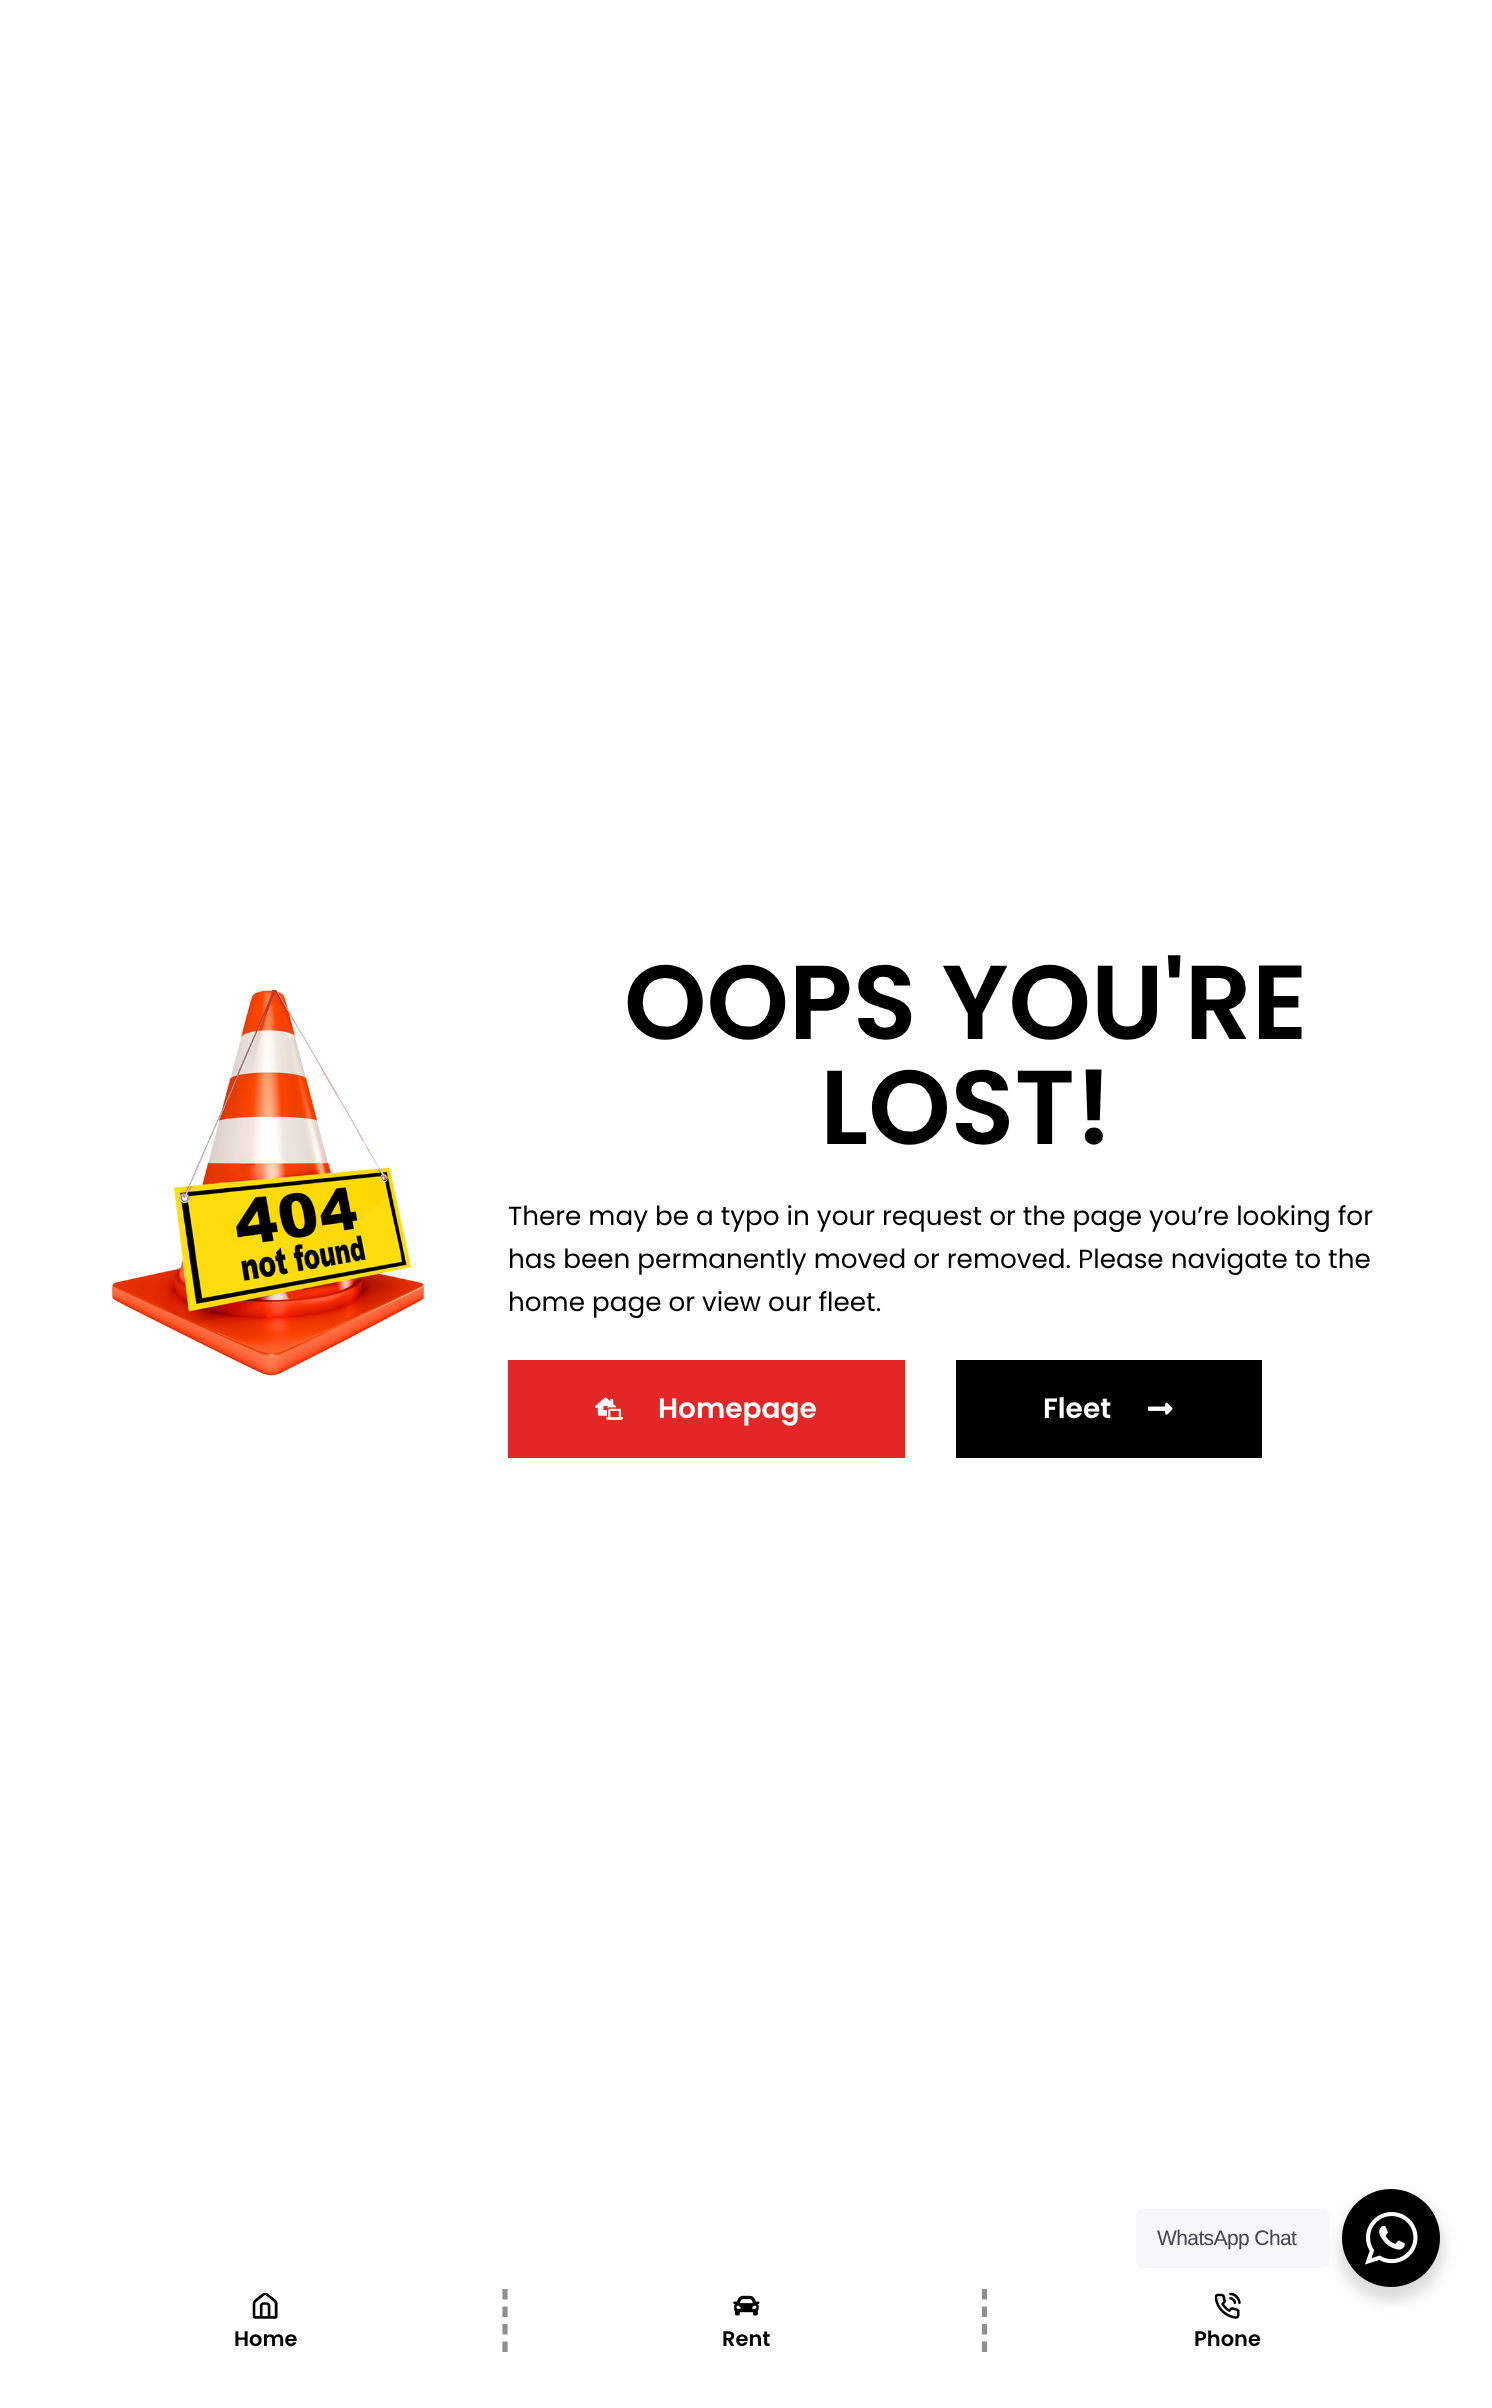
async function draw(canvas) {
  canvas.width = 1492
  canvas.height = 2408
  const ctx = canvas.getContext('2d')
  ctx.miterLimit = 4
  ctx.fontKerning = 'normal'
  async function loadImage(src) {
    const img = new Image()
    img.src = src
    await img.decode()
    return img
  }

  ctx.fillStyle = '#fff'
  ctx.fillRect(0, 0, 1492, 2408)
  ctx.drawImage(await loadImage('image0.png'), 111, 989, 313, 387)
  ctx.font = '600 105px Poppins'
  ctx.fillStyle = '#000'
  ctx.fillText('OOPS YOU\'RE', 624, 1039)
  ctx.fillText('LOST!', 820, 1144)
  ctx.font = '26.25px Poppins'
  ctx.fillText('There may be a typo in your request or the page you’re looking for', 508, 1225)
  ctx.fillText('has been permanently moved or removed. Please navigate to the', 508, 1268)
  ctx.fillText('home page or view our fleet.', 508, 1311)
  ctx.fillStyle = '#e32626'
  ctx.fillRect(508, 1360, 397, 98)
  ctx.drawImage(await loadImage('image1.png'), 595, 1397, 28, 23)
  ctx.font = '600 28px Poppins'
  ctx.fillStyle = '#fff'
  ctx.fillText('Homepage', 658, 1418)
  ctx.fillStyle = '#000'
  ctx.fillRect(956, 1360, 306, 98)
  ctx.fillStyle = '#fff'
  ctx.fillText('Fleet', 1043, 1418)
  ctx.drawImage(await loadImage('image2.png'), 1148, 1402, 25, 13)
  ctx.fillStyle = '#00000024'
  ctx.filter = 'blur(7px)'
  ctx.beginPath()
  ctx.roundRect(1339, 2196, 105, 105, 52.5)
  ctx.fill()
  ctx.filter = 'none'
  ctx.fillStyle = '#f5f7f9'
  ctx.beginPath()
  ctx.roundRect(1136, 2209, 194, 59, 7)
  ctx.fill()
  ctx.letterSpacing = '-0.6px'
  ctx.font = '21px Liberation Sans'
  ctx.fillStyle = '#43474e'
  ctx.fillText('WhatsApp Chat', 1157, 2245)
  ctx.fillStyle = '#000'
  ctx.beginPath()
  ctx.arc(1391, 2238, 49, 0, 2 * Math.PI)
  ctx.fill()
  ctx.drawImage(await loadImage('image3.png'), 1365, 2212, 53, 53)
  ctx.drawImage(await loadImage('image4.png'), 252, 2293, 26, 26)
  ctx.beginPath()
  ctx.moveTo(505, 2289)
  ctx.lineTo(505, 2352)
  ctx.strokeStyle = '#8f8f8f'
  ctx.lineWidth = 5.2
  ctx.setLineDash([10.5, 7])
  ctx.stroke()
  ctx.letterSpacing = '0px'
  ctx.font = '600 21px Poppins'
  ctx.fillText('Home', 234, 2346)
  ctx.drawImage(await loadImage('image5.png'), 733, 2295, 27, 21)
  ctx.beginPath()
  ctx.moveTo(984.5, 2289)
  ctx.lineTo(984.5, 2352)
  ctx.stroke()
  ctx.fillText('Rent', 722, 2346)
  ctx.drawImage(await loadImage('image6.png'), 1215, 2293, 26, 26)
  ctx.fillText('Phone', 1194, 2346)
}

draw(document.querySelector('canvas'))
